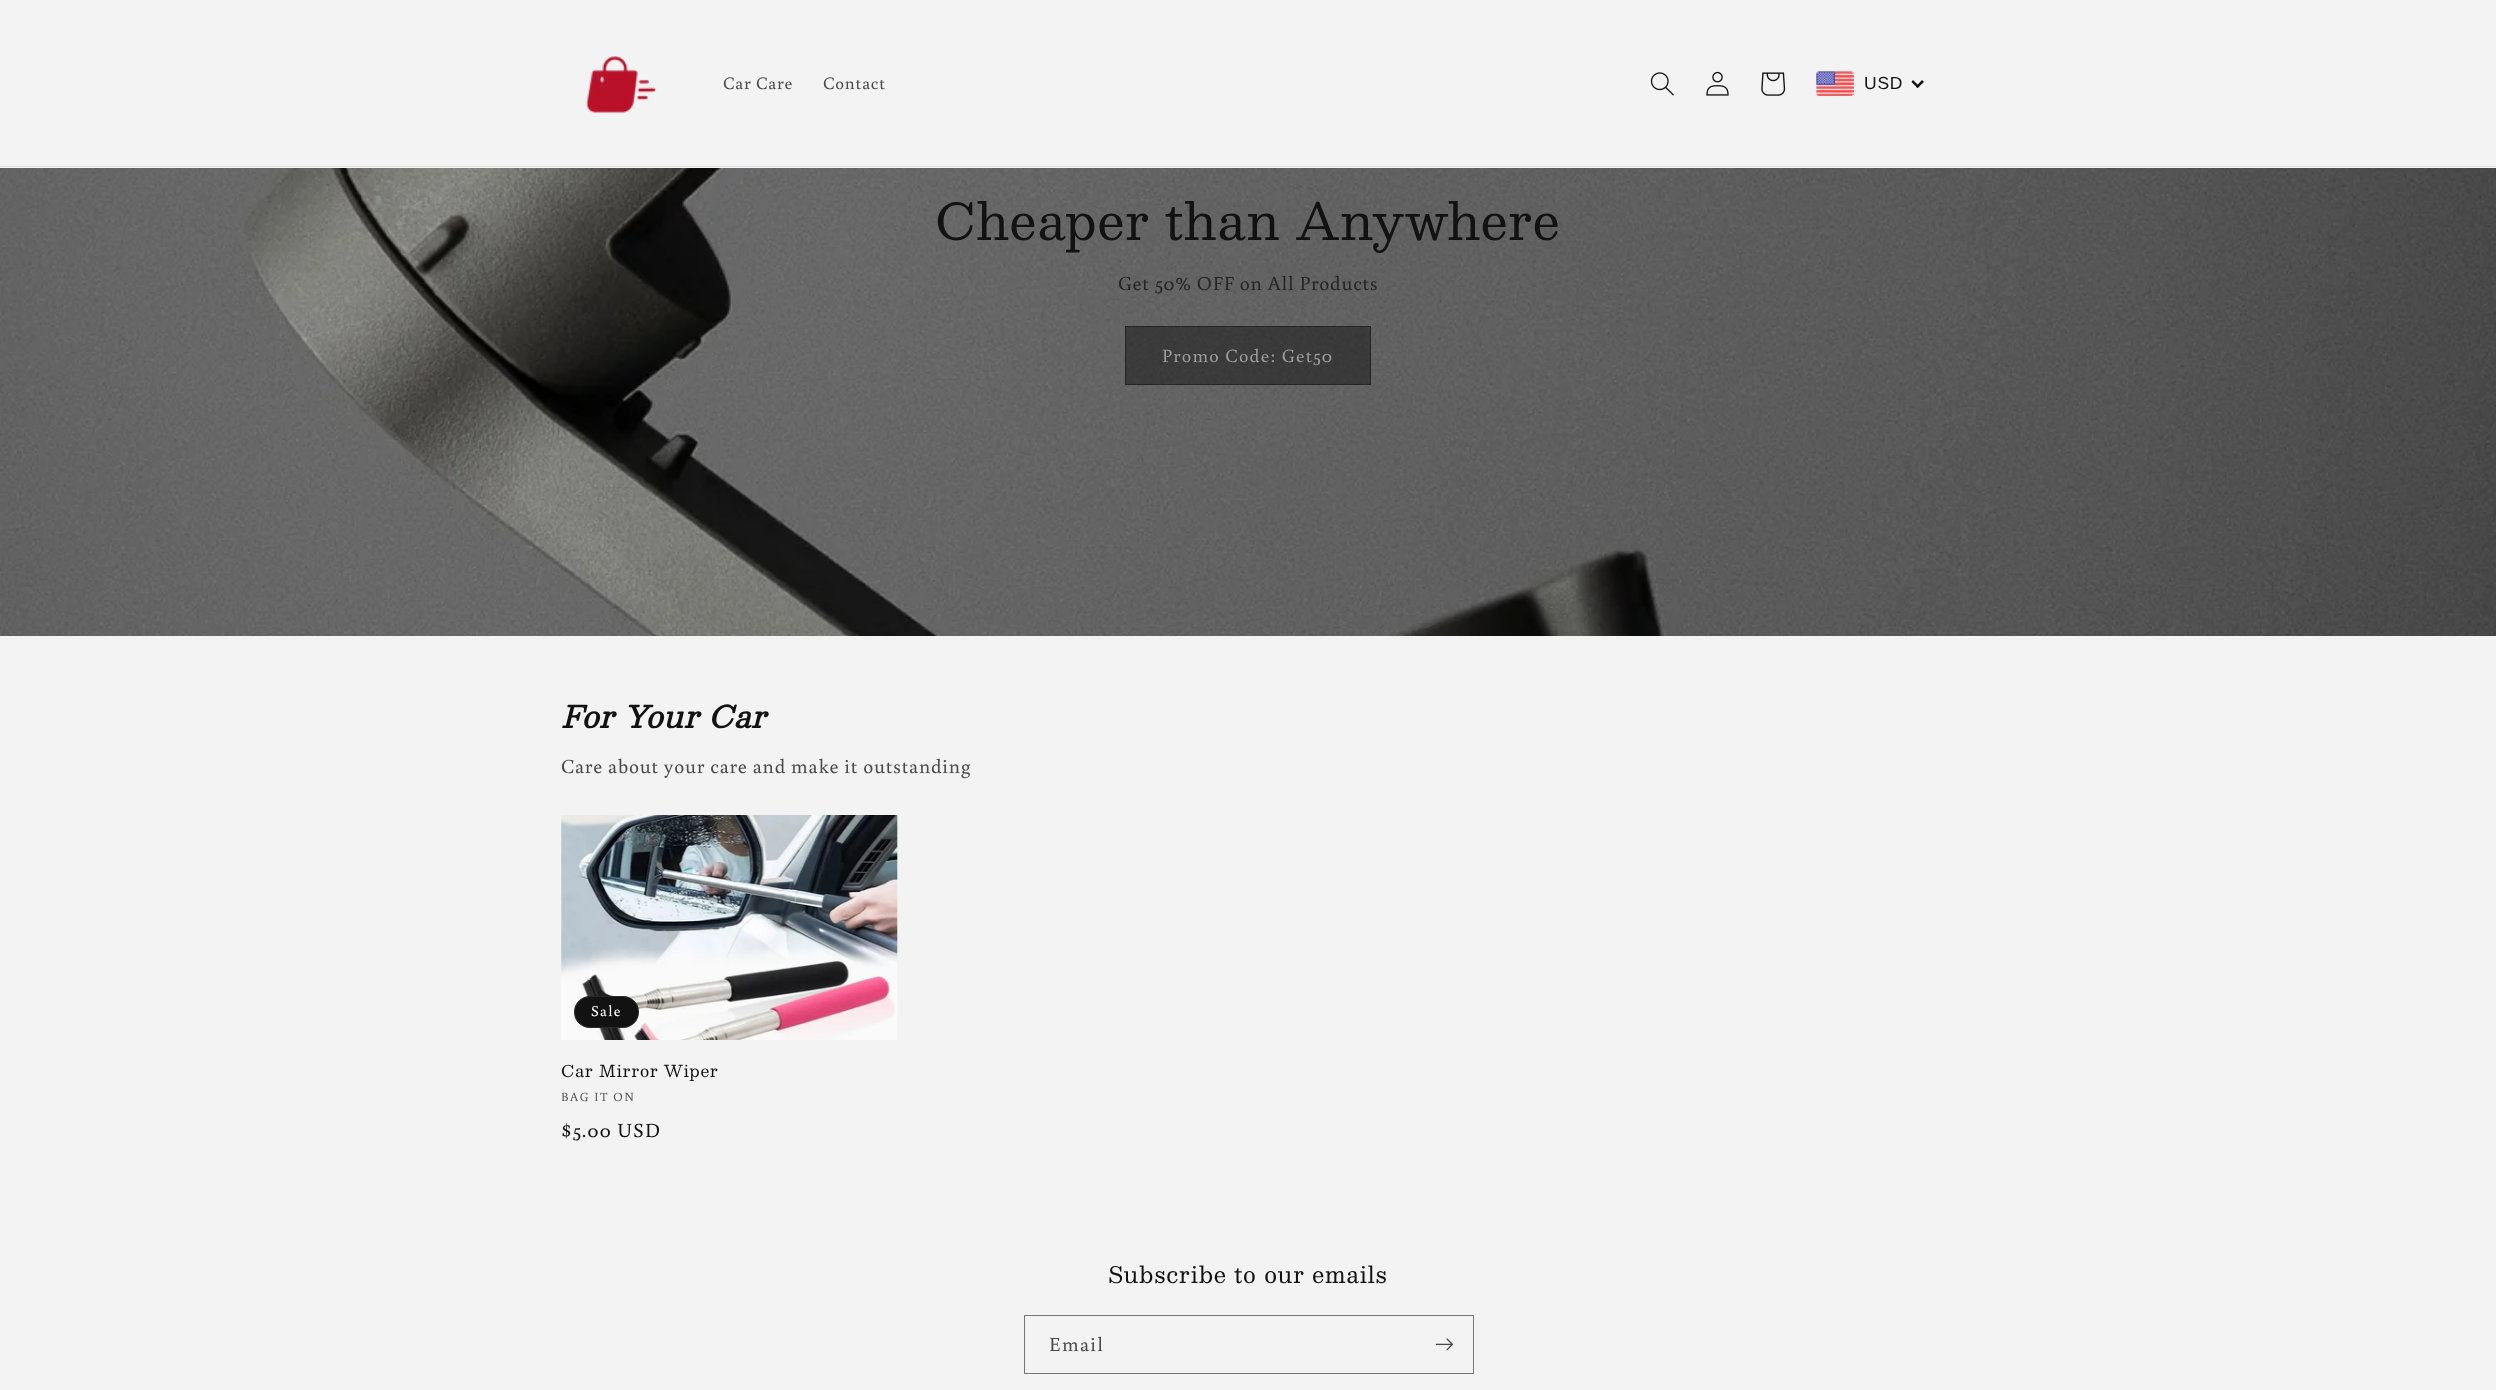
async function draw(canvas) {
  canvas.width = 2496
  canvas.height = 1390
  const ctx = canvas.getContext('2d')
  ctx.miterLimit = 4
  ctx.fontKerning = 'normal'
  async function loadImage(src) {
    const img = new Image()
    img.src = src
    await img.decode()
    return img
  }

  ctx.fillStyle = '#f3f3f3'
  ctx.fillRect(0, 0, 2496, 1390)
  ctx.fillStyle = '#e1e1e1'
  ctx.fillRect(0, 166, 2496, 1)
  ctx.drawImage(await loadImage('image0.png'), 586, 56, 71, 57)
  ctx.letterSpacing = '0.75px'
  ctx.font = '17.5px Buenard'
  ctx.fillStyle = '#4a4a4a'
  ctx.fillText('Car Care', 723, 89)
  ctx.fillText('Contact', 823, 89)
  ctx.drawImage(await loadImage('image1.png'), 1650, 72, 24, 24)
  ctx.drawImage(await loadImage('image2.png'), 1706, 71, 23, 25)
  ctx.drawImage(await loadImage('image3.png'), 1761, 72, 25, 24)
  ctx.drawImage(await loadImage('image4.png'), 1816, 71, 38, 25)
  ctx.font = '17.5px Liberation Sans'
  ctx.fillStyle = '#121212'
  ctx.fillText('USD', 1864, 89)
  ctx.beginPath()
  ctx.moveTo(1922, 80)
  ctx.lineTo(1924, 82)
  ctx.lineTo(1917.5, 88)
  ctx.lineTo(1916, 86.5)
  ctx.closePath()
  ctx.fill()
  ctx.beginPath()
  ctx.moveTo(1913, 80)
  ctx.lineTo(1919.5, 86.5)
  ctx.lineTo(1917.5, 88)
  ctx.lineTo(1911.5, 82)
  ctx.closePath()
  ctx.fill()
  ctx.drawImage(await loadImage('image5.png'), 0, 168, 2496, 468)
  ctx.font = '50px Besley'
  ctx.fillText('Cheaper than Anywhere', 935, 240)
  ctx.font = '20px Buenard'
  ctx.fillStyle = '#262626'
  ctx.fillText('Get 50% OFF on All Products', 1118, 290)
  ctx.fillStyle = '#12121280'
  ctx.fillRect(1125, 326, 246, 59)
  ctx.strokeStyle = '#12121280'
  ctx.strokeRect(1125.5, 326.5, 245, 58)
  ctx.letterSpacing = '1.25px'
  ctx.font = '18.75px Buenard'
  ctx.fillStyle = '#9d9d9d'
  ctx.fillText('Promo Code: Get50', 1162, 362)
  ctx.letterSpacing = '0.75px'
  ctx.font = 'italic bold 30px Besley'
  ctx.fillStyle = '#121212'
  ctx.fillText('For Your Car', 561, 728)
  ctx.font = '20px Buenard'
  ctx.fillStyle = '#4a4a4a'
  ctx.fillText('Care about your care and make it outstanding', 561, 773)
  ctx.drawImage(await loadImage('image6.png'), 561, 815, 337, 225)
  ctx.fillStyle = '#121212'
  ctx.beginPath()
  ctx.roundRect(574, 996, 65, 32, 16)
  ctx.fill()
  ctx.beginPath()
  ctx.roundRect(574.5, 996.5, 64, 31, 15.5)
  ctx.strokeStyle = '#ffffff1a'
  ctx.stroke()
  ctx.letterSpacing = '1.25px'
  ctx.font = '15px Buenard'
  ctx.fillStyle = '#fff'
  ctx.fillText('Sale', 591, 1016)
  ctx.letterSpacing = '0.75px'
  ctx.font = '16.25px Besley'
  ctx.fillStyle = '#121212'
  ctx.fillText('Car Mirror Wiper', 561, 1077)
  ctx.letterSpacing = '1.6px'
  ctx.font = '12.5px Buenard'
  ctx.fillStyle = '#565656'
  ctx.fillText('BAG IT ON', 561, 1101)
  ctx.letterSpacing = '1.25px'
  ctx.font = '20px Buenard'
  ctx.fillStyle = '#121212'
  ctx.fillText('$5.00 USD', 561, 1137)
  ctx.letterSpacing = '0.75px'
  ctx.font = '22.5px Besley'
  ctx.fillText('Subscribe to our emails', 1108, 1283)
  ctx.strokeStyle = '#777'
  ctx.strokeRect(1024.5, 1315.5, 449, 58)
  ctx.letterSpacing = '1.25px'
  ctx.font = '20px Buenard'
  ctx.fillStyle = '#4a4a4a'
  ctx.fillText('Email', 1049, 1351)
  ctx.drawImage(await loadImage('image7.png'), 1435, 1338, 18, 13)
}

draw(document.querySelector('canvas'))
